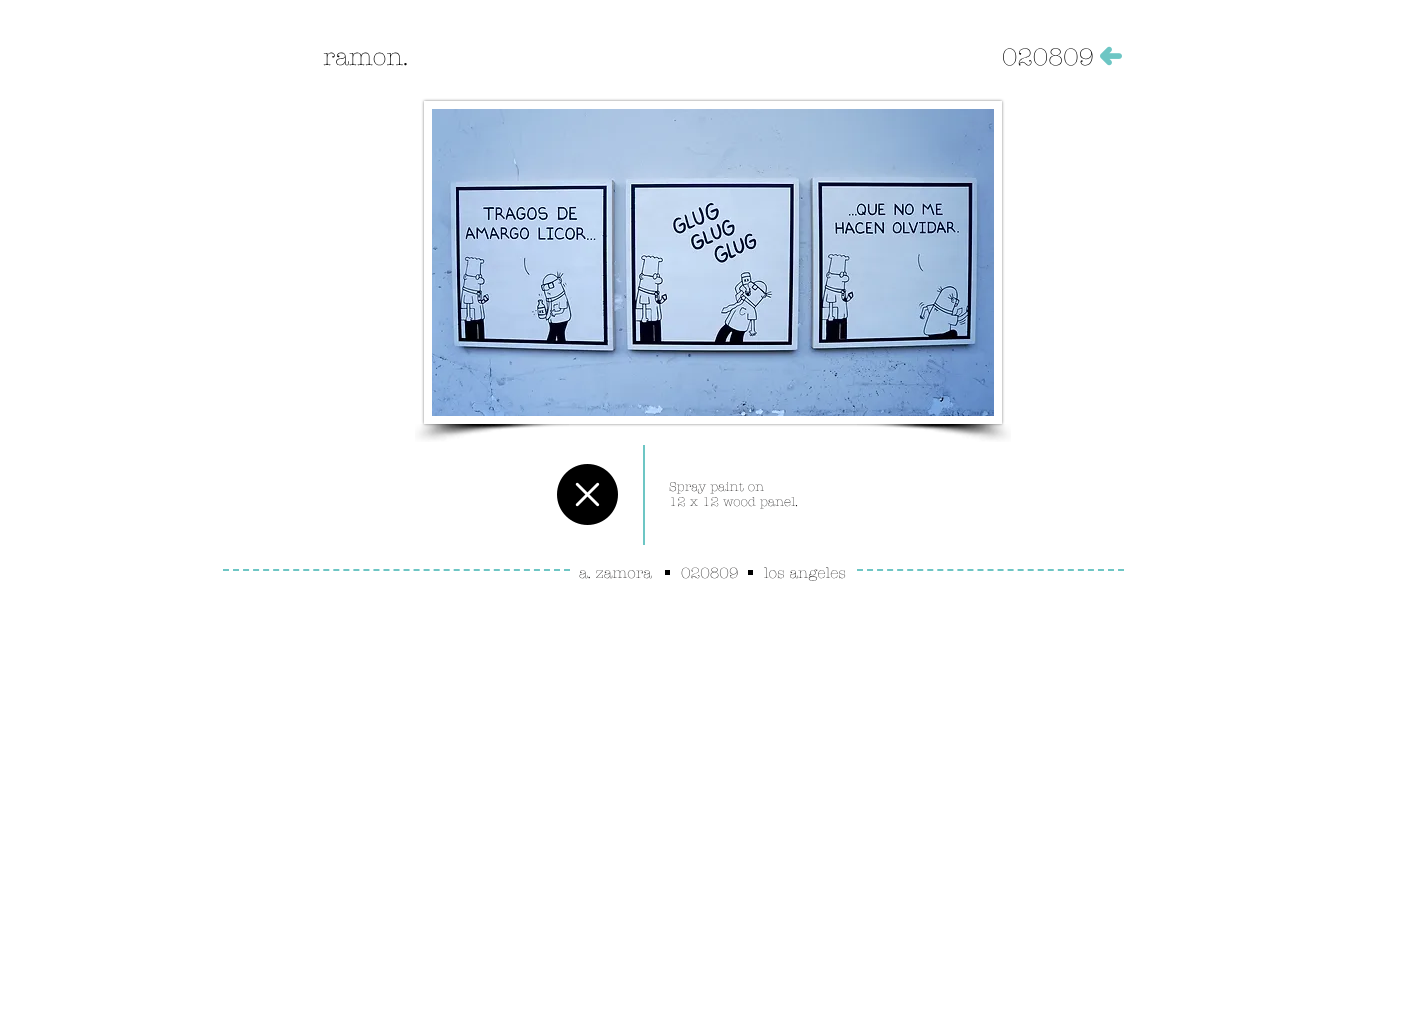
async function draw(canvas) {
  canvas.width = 1425
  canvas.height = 1027
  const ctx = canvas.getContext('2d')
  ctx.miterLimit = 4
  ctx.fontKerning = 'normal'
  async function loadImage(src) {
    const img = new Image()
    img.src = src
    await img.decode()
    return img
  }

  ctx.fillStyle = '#fff'
  ctx.fillRect(0, 0, 1425, 1027)
  ctx.font = '300 24px "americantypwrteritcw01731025"'
  ctx.fillStyle = '#000'
  ctx.fillText('ramon.', 323, 65)
  ctx.fillText('020809', 1002, 65)
  ctx.drawImage(await loadImage('image0.png'), 1100, 46, 22, 20)
  ctx.save()
  ctx.beginPath()
  ctx.moveTo(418, 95)
  ctx.lineTo(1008, 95)
  ctx.lineTo(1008, 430)
  ctx.lineTo(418, 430)
  ctx.closePath()
  ctx.moveTo(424, 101)
  ctx.lineTo(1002, 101)
  ctx.lineTo(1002, 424)
  ctx.lineTo(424, 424)
  ctx.closePath()
  ctx.clip('evenodd')
  ctx.fillStyle = '#00000080'
  ctx.filter = 'blur(1.5px)'
  ctx.beginPath()
  ctx.rect(424, 101, 578, 323)
  ctx.fill()
  ctx.filter = 'none'
  ctx.restore()
  ctx.drawImage(await loadImage('image1.png'), 432, 109, 562, 307)
  ctx.drawImage(await loadImage('image2.png'), 415, 424, 154, 18)
  ctx.drawImage(await loadImage('image3.png'), 857, 424, 154, 18)
  ctx.drawImage(await loadImage('image4.png'), 557, 464, 61, 61)
  ctx.fillStyle = '#6dc6c4'
  ctx.fillRect(643, 445, 2, 100)
  ctx.font = '300 13px "americantypwrteritcw01731025"'
  ctx.fillStyle = '#181717'
  ctx.fillText('Spray paint on', 669, 491)
  ctx.fillText('12 x 12 wood panel.', 669, 506)
  ctx.beginPath()
  ctx.moveTo(223, 570)
  ctx.lineTo(570, 570)
  ctx.strokeStyle = '#6dc6c4'
  ctx.lineWidth = 2
  ctx.setLineDash([6, 4.03])
  ctx.stroke()
  ctx.font = '300 15px "americantypwrteritcw01731025"'
  ctx.fillText('a. zamora', 579, 578)
  ctx.fillStyle = '#000'
  ctx.fillRect(665, 570, 5, 5)
  ctx.fillStyle = '#181717'
  ctx.fillText('020809', 681, 578)
  ctx.fillStyle = '#000'
  ctx.fillRect(748, 570, 5, 5)
  ctx.fillStyle = '#181717'
  ctx.fillText('los angeles', 764, 578)
  ctx.beginPath()
  ctx.moveTo(857, 570)
  ctx.lineTo(1124, 570)
  ctx.setLineDash([6, 4.04])
  ctx.stroke()
}

draw(document.querySelector('canvas'))
